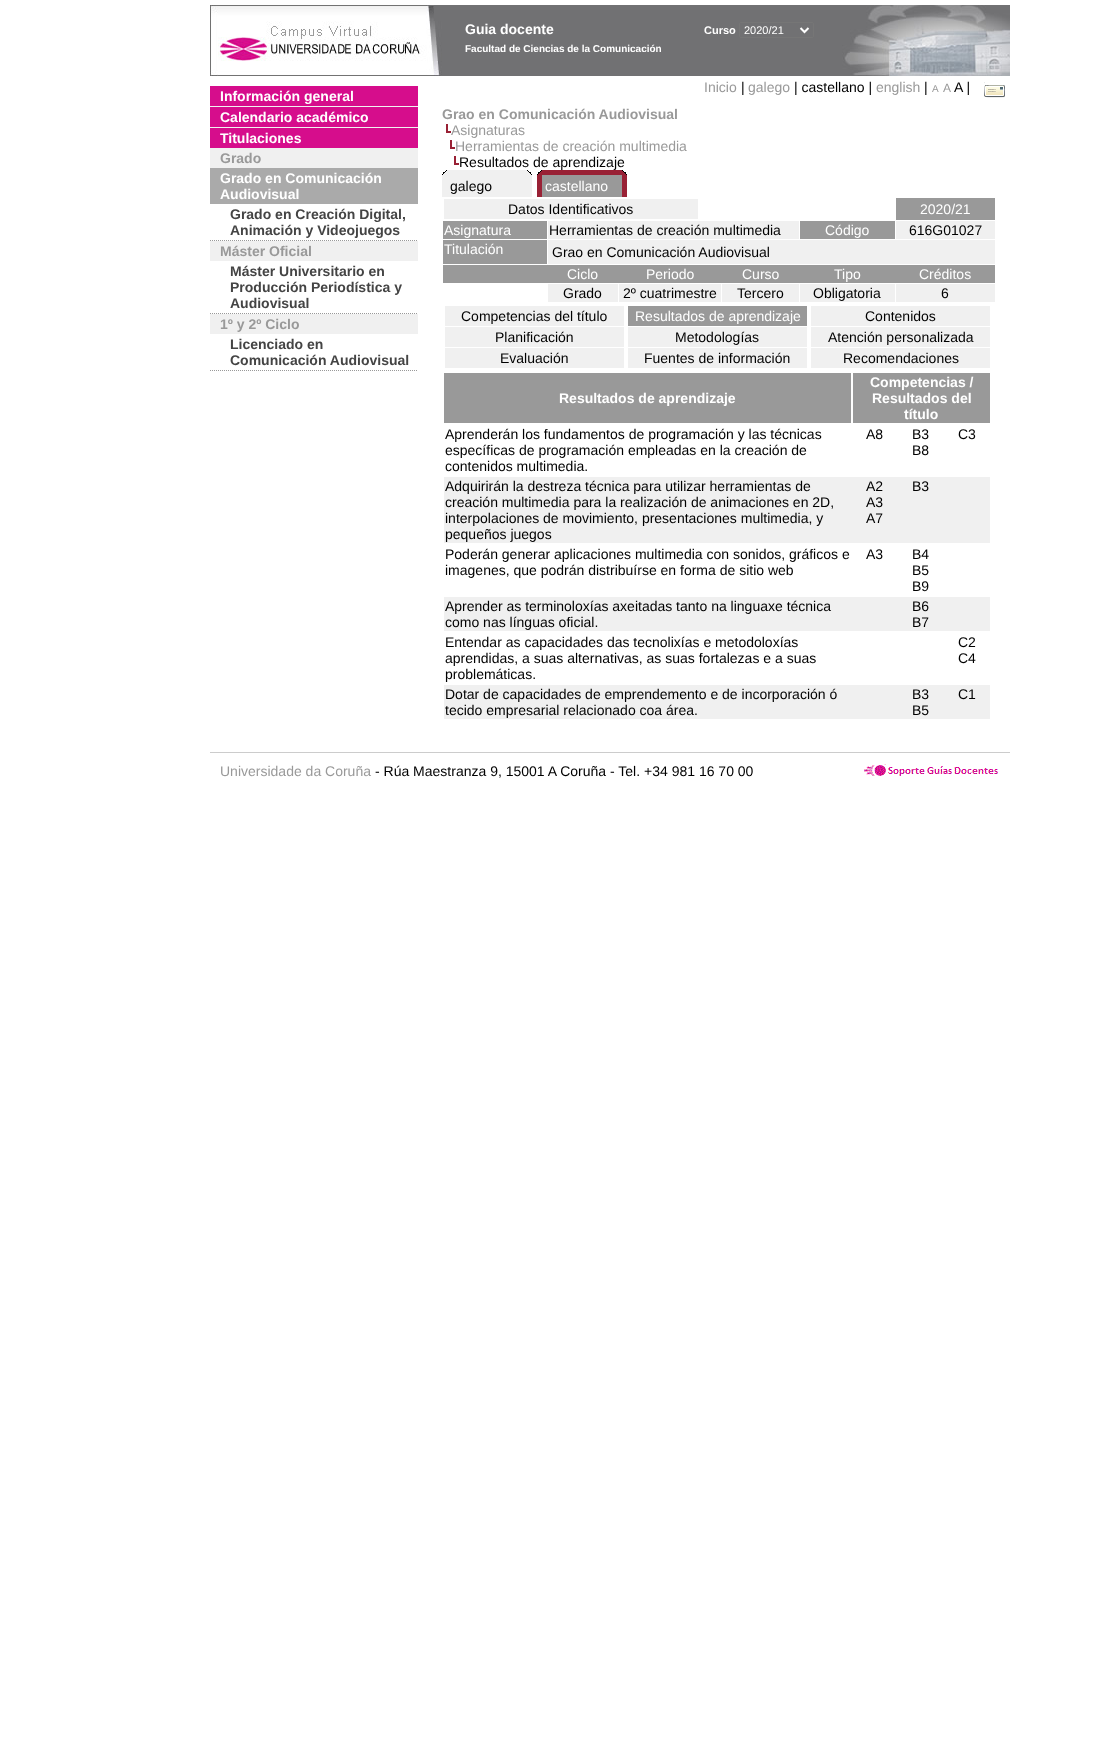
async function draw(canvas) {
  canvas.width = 1114
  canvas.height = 1758
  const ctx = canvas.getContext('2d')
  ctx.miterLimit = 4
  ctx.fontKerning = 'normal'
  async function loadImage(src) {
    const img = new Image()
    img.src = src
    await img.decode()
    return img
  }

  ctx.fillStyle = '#fff'
  ctx.fillRect(0, 0, 1114, 1758)
  ctx.drawImage(await loadImage('image0.png'), 210, 5, 800, 71)
  ctx.font = 'bold 14px Liberation Sans'
  ctx.fillText('Guia docente', 465, 34)
  ctx.font = 'bold 11px Liberation Sans'
  ctx.fillText('Curso', 704, 34)
  ctx.beginPath()
  ctx.roundRect(739.5, 22.5, 74, 15, 1.5)
  ctx.strokeStyle = '#767676'
  ctx.stroke()
  ctx.beginPath()
  ctx.moveTo(800.5, 28)
  ctx.lineTo(804.5, 32)
  ctx.lineTo(808.5, 28)
  ctx.strokeStyle = '#fff'
  ctx.lineWidth = 2
  ctx.stroke()
  ctx.font = '11px Liberation Sans'
  ctx.fillText('2020/21', 744, 34)
  ctx.font = 'bold 10px Liberation Sans'
  ctx.fillText('Facultad de Ciencias de la Comunicación', 465, 52)
  ctx.font = '14px Liberation Sans'
  ctx.fillStyle = '#999'
  ctx.fillText('Inicio', 704, 92)
  ctx.fillStyle = '#000'
  ctx.fillText('|', 741, 92)
  ctx.fillStyle = '#999'
  ctx.fillText('galego', 748, 92)
  ctx.fillStyle = '#000'
  ctx.fillText('| castellano |', 794, 92)
  ctx.fillStyle = '#999'
  ctx.fillText('english', 876, 92)
  ctx.fillStyle = '#000'
  ctx.fillText('|', 924, 92)
  ctx.font = '10px Liberation Sans'
  ctx.fillStyle = '#999'
  ctx.fillText('A', 932, 92)
  ctx.font = '12px Liberation Sans'
  ctx.fillText('A', 943, 92)
  ctx.font = '14px Liberation Sans'
  ctx.fillStyle = '#000'
  ctx.fillText('A |', 954, 92)
  ctx.drawImage(await loadImage('image1.png'), 984, 82, 21, 16)
  ctx.fillStyle = '#f0f0f0'
  ctx.fillRect(210, 106, 208, 228)
  ctx.fillStyle = '#d60d8c'
  ctx.fillRect(210, 86, 208, 20)
  ctx.font = 'bold 14px Liberation Sans'
  ctx.fillStyle = '#fff'
  ctx.fillText('Información general', 220, 101)
  ctx.fillStyle = '#d60d8c'
  ctx.fillRect(210, 107, 208, 20)
  ctx.fillStyle = '#fff'
  ctx.fillText('Calendario académico', 220, 122)
  ctx.fillStyle = '#d60d8c'
  ctx.fillRect(210, 128, 208, 20)
  ctx.fillStyle = '#fff'
  ctx.fillText('Titulaciones', 220, 143)
  ctx.fillStyle = '#999'
  ctx.fillText('Grado', 220, 163)
  ctx.fillStyle = '#aaa'
  ctx.fillRect(210, 168, 208, 36)
  ctx.fillStyle = '#fff'
  ctx.fillText('Grado en Comunicación', 220, 183)
  ctx.fillText('Audiovisual', 220, 199)
  ctx.fillRect(210, 204, 208, 37)
  ctx.beginPath()
  ctx.moveTo(210, 240.5)
  ctx.lineTo(418, 240.5)
  ctx.strokeStyle = '#999'
  ctx.lineWidth = 1
  ctx.setLineDash([1, 1])
  ctx.stroke()
  ctx.fillStyle = '#444'
  ctx.fillText('Grado en Creación Digital,', 230, 219)
  ctx.fillText('Animación y Videojuegos', 230, 235)
  ctx.fillStyle = '#999'
  ctx.fillText('Máster Oficial', 220, 256)
  ctx.fillStyle = '#fff'
  ctx.fillRect(210, 261, 208, 53)
  ctx.beginPath()
  ctx.moveTo(210, 313.5)
  ctx.lineTo(418, 313.5)
  ctx.stroke()
  ctx.fillStyle = '#444'
  ctx.fillText('Máster Universitario en', 230, 276)
  ctx.fillText('Producción Periodística y', 230, 292)
  ctx.fillText('Audiovisual', 230, 308)
  ctx.fillStyle = '#999'
  ctx.fillText('1º y 2º Ciclo', 220, 329)
  ctx.beginPath()
  ctx.moveTo(210, 370.5)
  ctx.lineTo(418, 370.5)
  ctx.stroke()
  ctx.fillStyle = '#444'
  ctx.fillText('Licenciado en', 230, 349)
  ctx.fillText('Comunicación Audiovisual', 230, 365)
  ctx.fillStyle = '#999'
  ctx.fillText('Grao en Comunicación Audiovisual', 442, 119)
  ctx.drawImage(await loadImage('image2.png'), 446, 124, 5, 9)
  ctx.font = '14px Liberation Sans'
  ctx.fillText('Asignaturas', 451, 135)
  ctx.drawImage(await loadImage('image2.png'), 450, 140, 5, 9)
  ctx.fillText('Herramientas de creación multimedia', 455, 151)
  ctx.drawImage(await loadImage('image2.png'), 454, 156, 5, 9)
  ctx.fillStyle = '#000'
  ctx.fillText('Resultados de aprendizaje', 459, 167)
  ctx.drawImage(await loadImage('image3.png'), 442, 170, 5, 5)
  ctx.fillStyle = '#f0f0f0'
  ctx.fillRect(447, 170, 80, 5)
  ctx.drawImage(await loadImage('image4.png'), 527, 170, 5, 5)
  ctx.fillRect(442, 175, 90, 22)
  ctx.fillStyle = '#000'
  ctx.fillText('galego', 450, 191)
  ctx.drawImage(await loadImage('image5.png'), 537, 170, 5, 5)
  ctx.fillStyle = '#992135'
  ctx.fillRect(542, 170, 80, 5)
  ctx.drawImage(await loadImage('image6.png'), 622, 170, 5, 5)
  ctx.fillRect(537, 175, 5, 22)
  ctx.fillStyle = '#999'
  ctx.fillRect(542, 175, 80, 22)
  ctx.fillStyle = '#fff'
  ctx.fillText('castellano', 545, 191)
  ctx.fillStyle = '#992135'
  ctx.fillRect(622, 175, 5, 22)
  ctx.fillStyle = '#f0f0f0'
  ctx.fillRect(444, 199, 254, 20)
  ctx.fillStyle = '#000'
  ctx.fillText('Datos Identificativos', 508, 214)
  ctx.fillStyle = '#999'
  ctx.fillRect(896, 198, 99, 22)
  ctx.fillStyle = '#fff'
  ctx.fillText('2020/21', 920, 214)
  ctx.fillStyle = '#999'
  ctx.fillRect(443, 221, 104, 18)
  ctx.fillStyle = '#fff'
  ctx.fillText('Asignatura', 444, 235)
  ctx.fillStyle = '#f0f0f0'
  ctx.fillRect(548, 221, 251, 18)
  ctx.fillStyle = '#000'
  ctx.fillText('Herramientas de creación multimedia', 549, 235)
  ctx.fillStyle = '#999'
  ctx.fillRect(800, 221, 95, 18)
  ctx.fillStyle = '#fff'
  ctx.fillText('Código', 825, 235)
  ctx.fillStyle = '#f0f0f0'
  ctx.fillRect(896, 221, 99, 18)
  ctx.fillStyle = '#000'
  ctx.fillText('616G01027', 909, 235)
  ctx.fillStyle = '#999'
  ctx.fillRect(443, 240, 104, 24)
  ctx.fillStyle = '#fff'
  ctx.fillText('Titulación', 444, 254)
  ctx.fillStyle = '#f0f0f0'
  ctx.fillRect(548, 240, 447, 24)
  ctx.fillStyle = '#000'
  ctx.fillText('Grao en Comunicación Audiovisual', 552, 257)
  ctx.fillStyle = '#999'
  ctx.fillRect(443, 265, 552, 18)
  ctx.fillStyle = '#fff'
  ctx.fillText('Ciclo', 567, 279)
  ctx.fillText('Periodo', 646, 279)
  ctx.fillText('Curso', 742, 279)
  ctx.fillText('Tipo', 834, 279)
  ctx.fillText('Créditos', 919, 279)
  ctx.fillStyle = '#f0f0f0'
  ctx.fillRect(548, 284, 70, 18)
  ctx.fillStyle = '#000'
  ctx.fillText('Grado', 563, 298)
  ctx.fillStyle = '#f0f0f0'
  ctx.fillRect(619, 284, 102, 18)
  ctx.fillStyle = '#000'
  ctx.fillText('2º cuatrimestre', 623, 298)
  ctx.fillStyle = '#f0f0f0'
  ctx.fillRect(722, 284, 77, 18)
  ctx.fillStyle = '#000'
  ctx.fillText('Tercero', 737, 298)
  ctx.fillStyle = '#f0f0f0'
  ctx.fillRect(800, 284, 95, 18)
  ctx.fillStyle = '#000'
  ctx.fillText('Obligatoria', 813, 298)
  ctx.fillStyle = '#f0f0f0'
  ctx.fillRect(896, 284, 99, 18)
  ctx.fillStyle = '#000'
  ctx.fillText('6', 941, 298)
  ctx.fillStyle = '#f0f0f0'
  ctx.fillRect(445, 306, 179, 20)
  ctx.fillStyle = '#000'
  ctx.fillText('Competencias del título', 461, 321)
  ctx.fillStyle = '#999'
  ctx.fillRect(628, 306, 179, 20)
  ctx.fillStyle = '#fff'
  ctx.fillText('Resultados de aprendizaje', 635, 321)
  ctx.fillStyle = '#f0f0f0'
  ctx.fillRect(811, 306, 179, 20)
  ctx.fillStyle = '#000'
  ctx.fillText('Contenidos', 865, 321)
  ctx.fillStyle = '#f0f0f0'
  ctx.fillRect(445, 327, 179, 20)
  ctx.fillStyle = '#000'
  ctx.fillText('Planificación', 495, 342)
  ctx.fillStyle = '#f0f0f0'
  ctx.fillRect(628, 327, 179, 20)
  ctx.fillStyle = '#000'
  ctx.fillText('Metodologías', 675, 342)
  ctx.fillStyle = '#f0f0f0'
  ctx.fillRect(811, 327, 179, 20)
  ctx.fillStyle = '#000'
  ctx.fillText('Atención personalizada', 828, 342)
  ctx.fillStyle = '#f0f0f0'
  ctx.fillRect(445, 348, 179, 20)
  ctx.fillStyle = '#000'
  ctx.fillText('Evaluación', 500, 363)
  ctx.fillStyle = '#f0f0f0'
  ctx.fillRect(628, 348, 179, 20)
  ctx.fillStyle = '#000'
  ctx.fillText('Fuentes de información', 644, 363)
  ctx.fillStyle = '#f0f0f0'
  ctx.fillRect(811, 348, 179, 20)
  ctx.fillStyle = '#000'
  ctx.fillText('Recomendaciones', 843, 363)
  ctx.fillStyle = '#999'
  ctx.fillRect(444, 373, 407, 50)
  ctx.font = 'bold 14px Liberation Sans'
  ctx.fillStyle = '#fff'
  ctx.fillText('Resultados de aprendizaje', 559, 403)
  ctx.fillStyle = '#999'
  ctx.fillRect(853, 373, 137, 50)
  ctx.fillStyle = '#fff'
  ctx.fillText('Competencias /', 870, 387)
  ctx.fillText('Resultados del', 872, 403)
  ctx.fillText('título', 904, 419)
  ctx.font = '14px Liberation Sans'
  ctx.fillStyle = '#000'
  ctx.fillText('Aprenderán los fundamentos de programación y las técnicas', 445, 439)
  ctx.fillText('específicas de programación empleadas en la creación de', 445, 455)
  ctx.fillText('contenidos multimedia.', 445, 471)
  ctx.fillText('A8', 866, 439)
  ctx.fillText('B3', 912, 439)
  ctx.fillText('B8', 912, 455)
  ctx.fillText('C3', 958, 439)
  ctx.fillStyle = '#f0f0f0'
  ctx.fillRect(444, 477, 546, 66)
  ctx.fillStyle = '#000'
  ctx.fillText('Adquirirán la destreza técnica para utilizar herramientas de', 445, 491)
  ctx.fillText('creación multimedia para la realización de animaciones en 2D,', 445, 507)
  ctx.fillText('interpolaciones de movimiento, presentaciones multimedia, y', 445, 523)
  ctx.fillText('pequeños juegos', 445, 539)
  ctx.fillText('A2', 866, 491)
  ctx.fillText('A3', 866, 507)
  ctx.fillText('A7', 866, 523)
  ctx.fillText('B3', 912, 491)
  ctx.fillText('Poderán generar aplicaciones multimedia con sonidos, gráficos e', 445, 559)
  ctx.fillText('imagenes, que podrán distribuírse en forma de sitio web', 445, 575)
  ctx.fillText('A3', 866, 559)
  ctx.fillText('B4', 912, 559)
  ctx.fillText('B5', 912, 575)
  ctx.fillText('B9', 912, 591)
  ctx.fillStyle = '#f0f0f0'
  ctx.fillRect(444, 597, 546, 34)
  ctx.fillStyle = '#000'
  ctx.fillText('Aprender as terminoloxías axeitadas tanto na linguaxe técnica', 445, 611)
  ctx.fillText('como nas línguas oficial.', 445, 627)
  ctx.fillText('B6', 912, 611)
  ctx.fillText('B7', 912, 627)
  ctx.fillText('Entendar as capacidades das tecnolixías e metodoloxías', 445, 647)
  ctx.fillText('aprendidas, a suas alternativas, as suas fortalezas e a suas', 445, 663)
  ctx.fillText('problemáticas.', 445, 679)
  ctx.fillText('C2', 958, 647)
  ctx.fillText('C4', 958, 663)
  ctx.fillStyle = '#f0f0f0'
  ctx.fillRect(444, 685, 546, 34)
  ctx.fillStyle = '#000'
  ctx.fillText('Dotar de capacidades de emprendemento e de incorporación ó', 445, 699)
  ctx.fillText('tecido empresarial relacionado coa área.', 445, 715)
  ctx.fillText('B3', 912, 699)
  ctx.fillText('B5', 912, 715)
  ctx.fillText('C1', 958, 699)
  ctx.fillStyle = '#ccc'
  ctx.fillRect(210, 752, 800, 1)
  ctx.fillStyle = '#999'
  ctx.fillText('Universidade da Coruña', 220, 776)
  ctx.fillStyle = '#000'
  ctx.fillText('- Rúa Maestranza 9, 15001 A Coruña - Tel. +34 981 16 70 00', 375, 776)
  ctx.drawImage(await loadImage('image7.png'), 864, 764, 134, 12)
}

draw(document.querySelector('canvas'))
